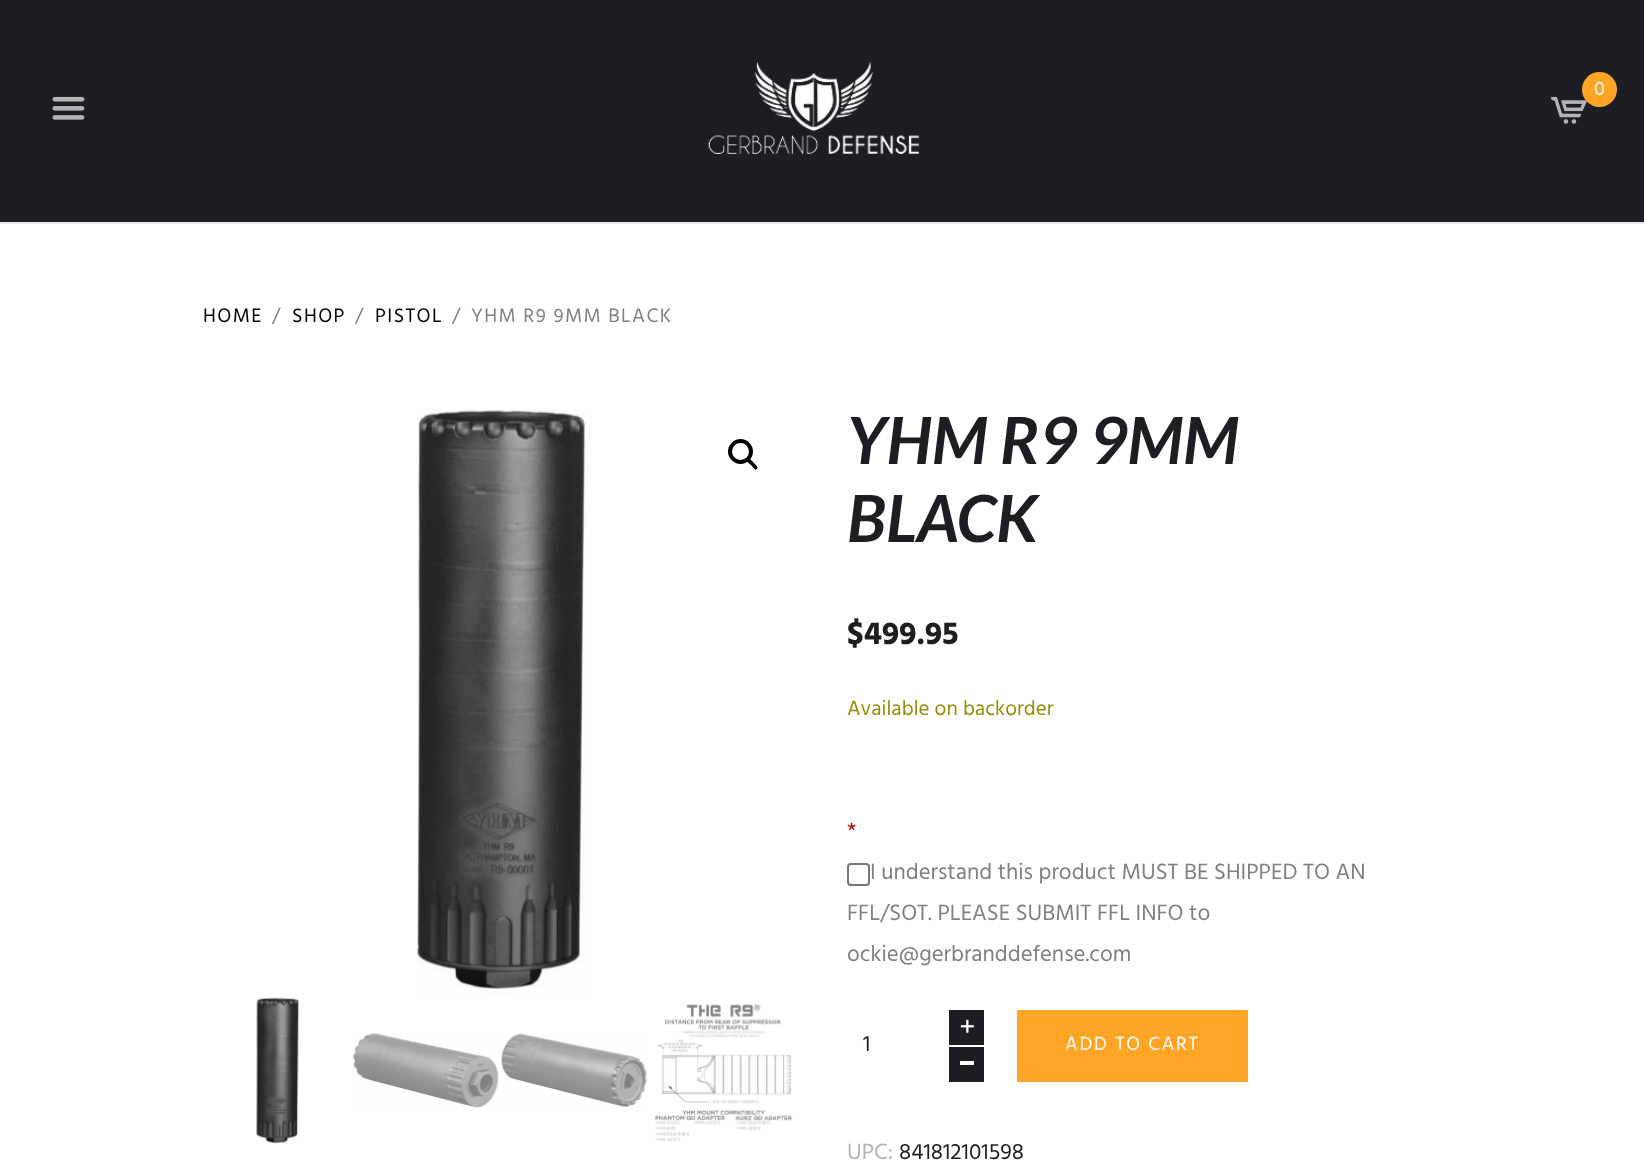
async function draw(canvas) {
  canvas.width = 1644
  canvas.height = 1167
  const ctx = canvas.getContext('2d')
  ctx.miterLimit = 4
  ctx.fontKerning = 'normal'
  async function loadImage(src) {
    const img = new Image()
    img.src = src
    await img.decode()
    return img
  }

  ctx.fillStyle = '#fff'
  ctx.fillRect(0, 0, 1644, 1167)
  ctx.fillStyle = '#1d1e23'
  ctx.fillRect(0, 0, 1644, 222)
  ctx.drawImage(await loadImage('image0.png'), 708, 61, 211, 93)
  ctx.drawImage(await loadImage('image1.png'), 1550, 96, 37, 28)
  ctx.fillStyle = '#fea526'
  ctx.beginPath()
  ctx.arc(1599.5, 89.5, 17.5, 0, 2 * Math.PI)
  ctx.fill()
  ctx.font = '20px Hind'
  ctx.fillStyle = '#fff'
  ctx.fillText('0', 1594, 95)
  ctx.drawImage(await loadImage('image2.png'), 52, 96, 33, 24)
  ctx.fillStyle = '#e7e7e8'
  ctx.fillRect(0, 222, 1644, 2)
  ctx.letterSpacing = '1.4px'
  ctx.fillStyle = '#000'
  ctx.fillText('HOME', 203, 322)
  ctx.fillStyle = '#808080'
  ctx.fillText('/', 272, 322)
  ctx.fillStyle = '#000'
  ctx.fillText('SHOP', 292, 322)
  ctx.fillStyle = '#808080'
  ctx.fillText('/', 355, 322)
  ctx.fillStyle = '#000'
  ctx.fillText('PISTOL', 375, 322)
  ctx.fillStyle = '#808080'
  ctx.fillText('/', 452, 322)
  ctx.fillText('YHM R9 9MM BLACK', 471, 322)
  ctx.drawImage(await loadImage('image3.png'), 417, 409, 175, 586)
  ctx.beginPath()
  ctx.arc(740.5, 451.5, 10.5, 0, 2 * Math.PI)
  ctx.strokeStyle = '#000'
  ctx.lineWidth = 4
  ctx.stroke()
  ctx.fillStyle = '#000'
  ctx.beginPath()
  ctx.moveTo(747, 459)
  ctx.bezierCurveTo(749, 457, 752.5, 461.5, 753.5, 462.5)
  ctx.bezierCurveTo(754.5, 464, 759, 467, 757, 469)
  ctx.bezierCurveTo(755, 471, 752, 466, 751, 465)
  ctx.bezierCurveTo(750, 464, 745.5, 461, 747, 459)
  ctx.closePath()
  ctx.fill()
  ctx.drawImage(await loadImage('image4.png'), 256, 997, 44, 147)
  ctx.drawImage(await loadImage('image5.png'), 352, 1033, 147, 75)
  ctx.drawImage(await loadImage('image6.png'), 501, 1033, 147, 74)
  ctx.drawImage(await loadImage('image7.png'), 655, 1004, 138, 138)
  ctx.letterSpacing = '0px'
  ctx.font = 'italic bold 65px Lato'
  ctx.fillStyle = '#1d1e23'
  ctx.fillText('YHM R9 9MM', 847, 464)
  ctx.fillText('BLACK', 847, 542)
  ctx.font = 'bold 32.5px Hind'
  ctx.fillText('$499.95', 847, 644)
  ctx.font = '21px Hind'
  ctx.fillStyle = '#958e09'
  ctx.fillText('Available on backorder', 847, 715)
  ctx.font = '22.75px Hind'
  ctx.fillStyle = '#c10000'
  ctx.fillText('*', 847, 838)
  ctx.beginPath()
  ctx.roundRect(848, 864, 21, 21, 3)
  ctx.strokeStyle = '#767676'
  ctx.lineWidth = 2
  ctx.stroke()
  ctx.fillStyle = '#808080'
  ctx.fillText('I understand this product MUST BE SHIPPED TO AN', 870, 879)
  ctx.fillText('FFL/SOT. PLEASE SUBMIT FFL INFO to', 847, 920)
  ctx.fillText('ockie@gerbranddefense.com', 847, 961)
  ctx.fillStyle = '#1d1e23'
  ctx.fillText('1', 863, 1051)
  ctx.fillRect(949, 1010, 35, 35)
  ctx.drawImage(await loadImage('image8.png'), 960, 1019, 14, 14)
  ctx.fillRect(949, 1047, 35, 35)
  ctx.fillStyle = '#fff'
  ctx.fillRect(960, 1061, 14, 4)
  ctx.fillStyle = '#fea526'
  ctx.fillRect(1017, 1010, 231, 72)
  ctx.letterSpacing = '1.75px'
  ctx.font = '19.5px Hind'
  ctx.fillStyle = '#fff'
  ctx.fillText('ADD TO CART', 1065, 1050)
  ctx.letterSpacing = '0px'
  ctx.font = '22.75px Hind'
  ctx.fillStyle = '#b4b4b4'
  ctx.fillText('UPC:', 847, 1159)
  ctx.fillStyle = '#1d1e23'
  ctx.fillText('841812101598', 899, 1159)
}

draw(document.querySelector('canvas'))
